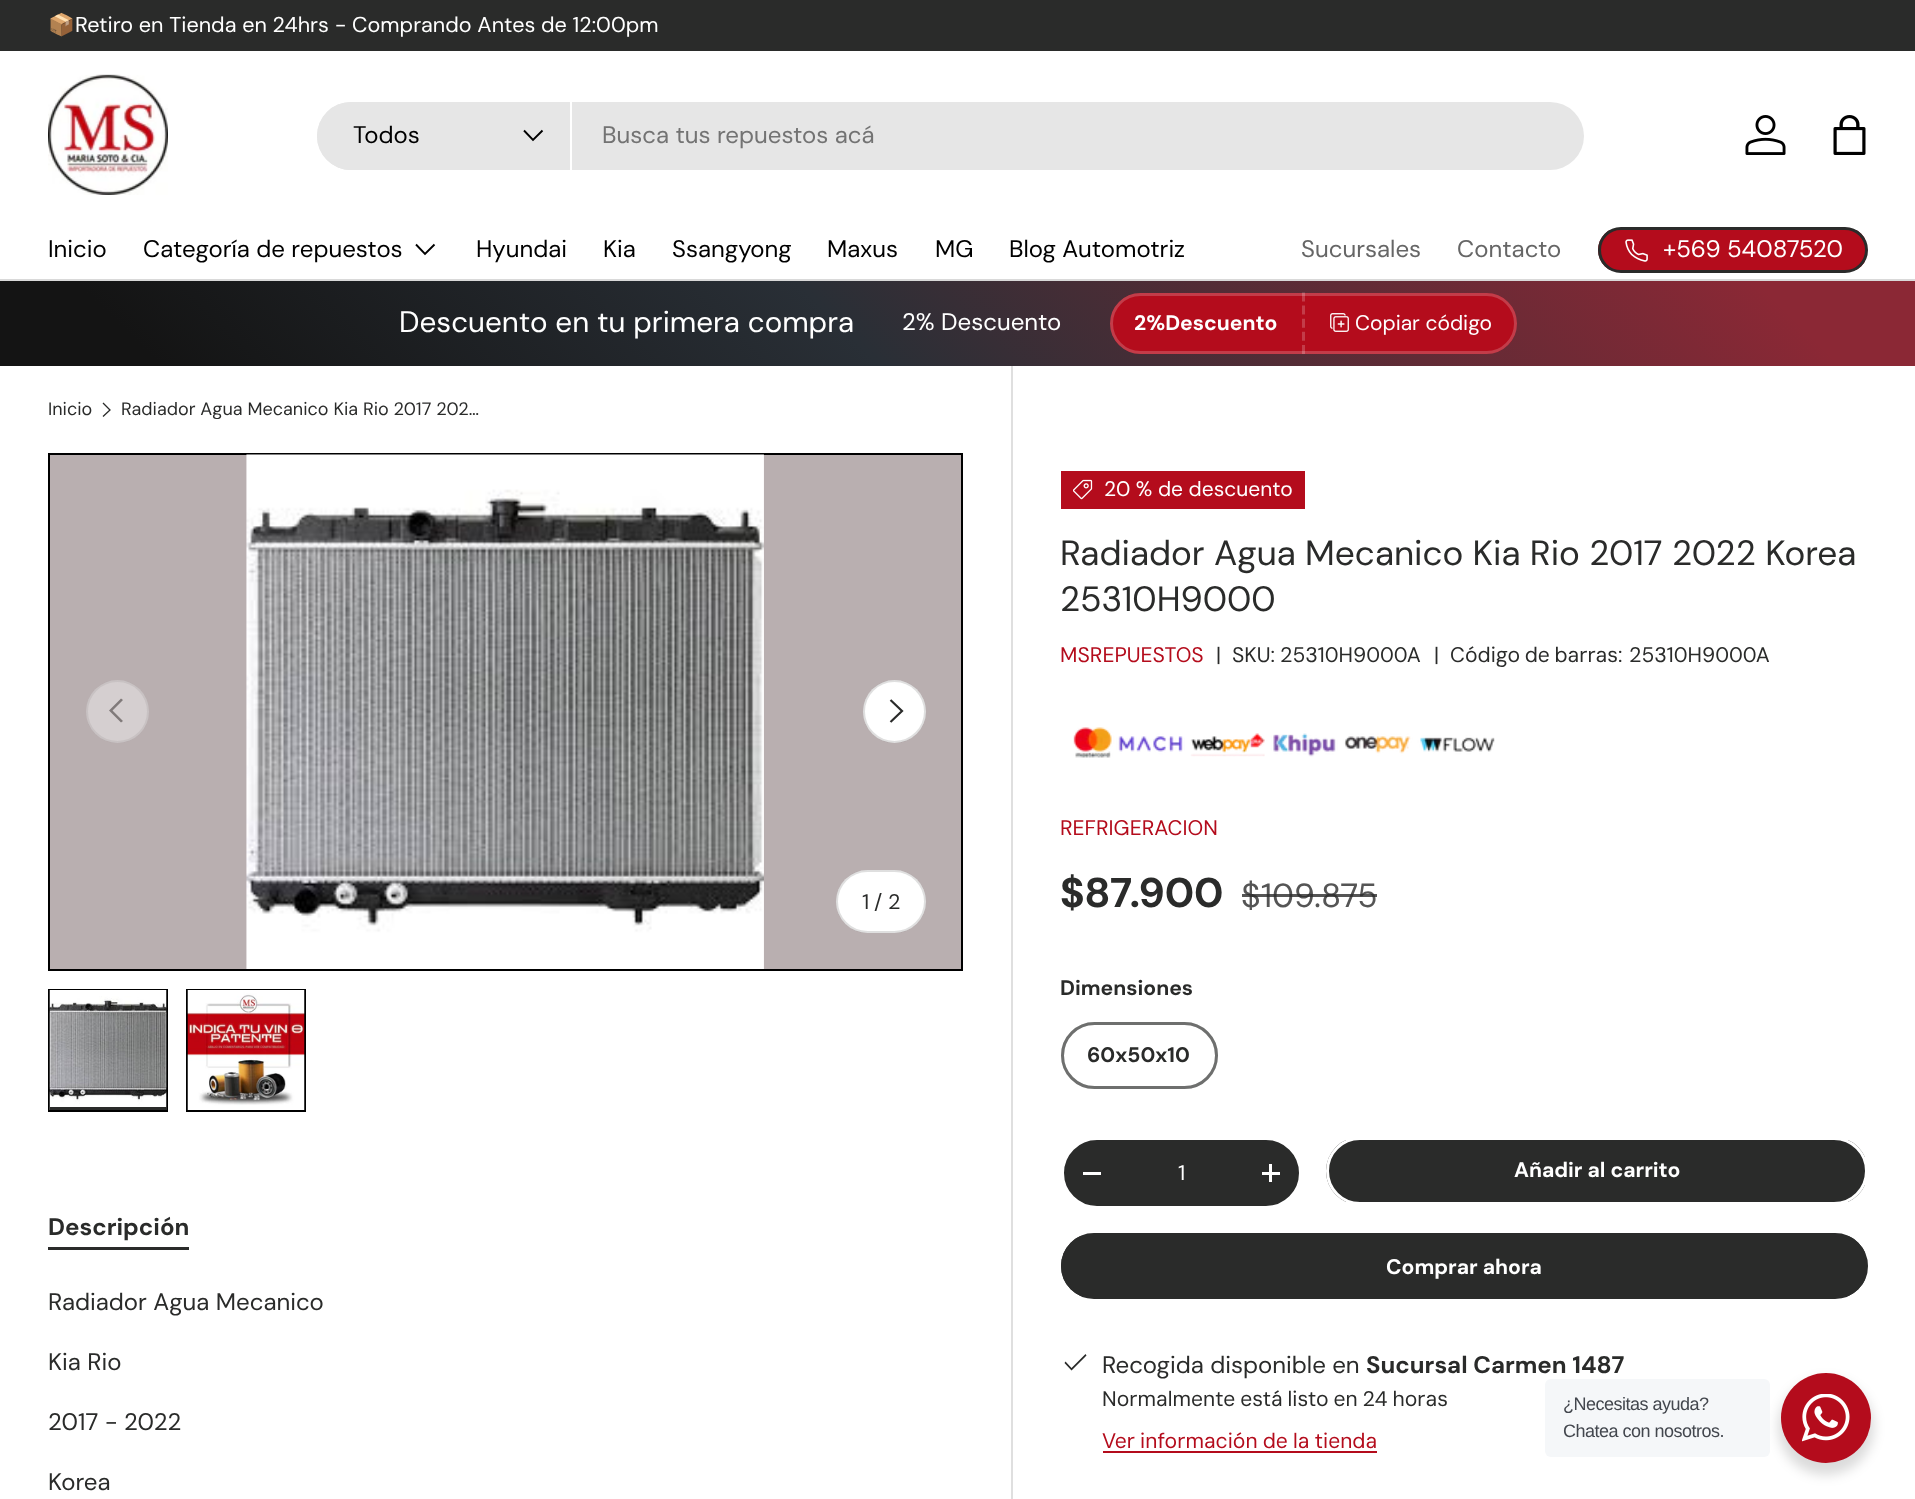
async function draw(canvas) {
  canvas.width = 1915
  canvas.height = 1499
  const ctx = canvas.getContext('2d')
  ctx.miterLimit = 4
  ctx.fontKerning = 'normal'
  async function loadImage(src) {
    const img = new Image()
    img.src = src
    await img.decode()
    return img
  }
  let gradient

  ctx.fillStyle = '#fff'
  ctx.fillRect(0, 0, 1915, 1499)
  ctx.fillStyle = '#2a2b2a'
  ctx.fillRect(0, 0, 1915, 51)
  ctx.font = '21.6px Noto Color Emoji'
  ctx.fillStyle = '#fff'
  ctx.fillText('📦', 48, 32)
  ctx.font = '21.6px "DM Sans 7"'
  ctx.fillText('Retiro en Tienda en 24hrs - Comprando Antes de 12:00pm', 75, 32)
  ctx.fillStyle = '#d9d9d9'
  ctx.fillRect(0, 279, 1915, 2)
  ctx.drawImage(await loadImage('image0.png'), 48, 74, 120, 121)
  ctx.fillStyle = '#e6e6e6'
  ctx.beginPath()
  ctx.roundRect(317, 102, 1267, 68, 34)
  ctx.fill()
  ctx.beginPath()
  ctx.roundRect(317, 102, 255, 68, [34, 0, 0, 34])
  ctx.fill()
  ctx.fillStyle = '#fff'
  ctx.fillRect(570, 102, 2, 68)
  ctx.font = '24px "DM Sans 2"'
  ctx.fillStyle = '#000'
  ctx.fillText('Todos', 353, 143)
  ctx.beginPath()
  ctx.moveTo(542.5, 130.5)
  ctx.lineTo(533, 140)
  ctx.lineTo(524, 130.5)
  ctx.strokeStyle = '#000'
  ctx.lineWidth = 1.9
  ctx.stroke()
  ctx.fillStyle = '#737373'
  ctx.fillText('Busca tus repuestos acá', 602, 143)
  ctx.drawImage(await loadImage('image1.png'), 1745, 115, 41, 40)
  ctx.drawImage(await loadImage('image2.png'), 1833, 115, 33, 40)
  ctx.fillStyle = '#000'
  ctx.fillText('Inicio', 48, 257)
  ctx.fillText('Categoría de repuestos', 143, 257)
  ctx.beginPath()
  ctx.moveTo(434.5, 244.5)
  ctx.lineTo(425, 254)
  ctx.lineTo(416, 244.5)
  ctx.stroke()
  ctx.fillText('Hyundai', 476, 257)
  ctx.fillText('Kia', 603, 257)
  ctx.fillText('Ssangyong', 672, 257)
  ctx.fillText('Maxus', 827, 257)
  ctx.fillText('MG', 935, 257)
  ctx.fillText('Blog Automotriz', 1009, 257)
  ctx.fillStyle = '#666'
  ctx.fillText('Sucursales', 1301, 257)
  ctx.fillText('Contacto', 1457, 257)
  ctx.save()
  ctx.beginPath()
  ctx.roundRect(1598, 227, 270, 46, 23)
  ctx.clip()
  gradient = ctx.createLinearGradient(1091, 156, 1846, 344)
  gradient.addColorStop(0.6, '#cb3342')
  gradient.addColorStop(0.6, '#b40c1c')
  gradient.addColorStop(1, '#b40c1c')
  ctx.fillStyle = gradient
  ctx.fillRect(1598, 230, 267, 40)
  ctx.restore()
  ctx.beginPath()
  ctx.roundRect(1599.5, 228.5, 267, 43, 21.5)
  ctx.strokeStyle = '#2a2b2a'
  ctx.lineWidth = 3
  ctx.stroke()
  ctx.drawImage(await loadImage('image3.png'), 1625, 239, 23, 23)
  ctx.fillStyle = '#fff'
  ctx.fillText('+569 54087520', 1663, 257)
  gradient = ctx.createLinearGradient(1458, -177, 458, 824)
  gradient.addColorStop(0.08, '#8b2835')
  gradient.addColorStop(0.56, '#292f36')
  gradient.addColorStop(0.92, '#141414')
  ctx.fillStyle = gradient
  ctx.fillRect(0, 281, 1915, 85)
  ctx.font = '29.6px DM Sans'
  ctx.fillStyle = '#fff'
  ctx.fillText('Descuento en tu primera compra', 399, 332)
  ctx.font = '24px "DM Sans 2"'
  ctx.fillText('2% Descuento', 902, 330)
  ctx.fillStyle = '#b40c1c'
  ctx.beginPath()
  ctx.roundRect(1110, 293, 407, 61, 30.5)
  ctx.fill()
  ctx.beginPath()
  ctx.roundRect(1111.5, 294.5, 404, 58, 29)
  ctx.strokeStyle = '#ffffff33'
  ctx.stroke()
  ctx.font = 'bold 21.1px DM Sans'
  ctx.fillStyle = '#fff'
  ctx.fillText('2%Descuento', 1134, 330)
  ctx.beginPath()
  ctx.moveTo(1303.5, 292.5)
  ctx.lineTo(1303.5, 354)
  ctx.setLineDash([9, 4.12])
  ctx.stroke()
  ctx.drawImage(await loadImage('image4.png'), 1330, 313, 19, 19)
  ctx.font = '21px "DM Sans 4"'
  ctx.fillText('Copiar código', 1355, 330)
  ctx.font = '18px "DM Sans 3"'
  ctx.fillStyle = '#2a2b2a'
  ctx.fillText('Inicio', 48, 415)
  ctx.beginPath()
  ctx.moveTo(103, 403)
  ctx.lineTo(110, 410)
  ctx.lineTo(103, 416.5)
  ctx.strokeStyle = '#2a2b2a'
  ctx.lineWidth = 1.3
  ctx.setLineDash([])
  ctx.stroke()
  ctx.save()
  ctx.beginPath()
  ctx.rect(120, 401, 360, 18)
  ctx.clip()
  ctx.fillText('Radiador Agua Mecanico Kia Rio 2017 202…', 121, 415)
  ctx.restore()
  ctx.font = 'bold 24px "DM Sans 3"'
  ctx.fillText('Descripción', 48, 1235)
  ctx.fillRect(48, 1247, 141, 3)
  ctx.font = '24px "DM Sans 2"'
  ctx.fillText('Radiador Agua Mecanico', 48, 1310)
  ctx.fillText('Kia Rio', 48, 1370)
  ctx.fillText('2017 - 2022', 48, 1430)
  ctx.fillText('Korea', 48, 1490)
  ctx.fillStyle = '#b9afb0'
  ctx.beginPath()
  ctx.rect(49, 454, 913, 516)
  ctx.fill()
  ctx.strokeStyle = '#000'
  ctx.lineWidth = 2
  ctx.stroke()
  ctx.drawImage(await loadImage('image5.png'), 246, 454, 518, 515)
  ctx.fillStyle = '#d5cfd0'
  ctx.beginPath()
  ctx.arc(117.5, 711.5, 31.5, 0, 2 * Math.PI)
  ctx.fill()
  ctx.beginPath()
  ctx.arc(117.5, 711.5, 30.5, 0, 2 * Math.PI)
  ctx.strokeStyle = '#807a7a26'
  ctx.stroke()
  ctx.fillStyle = '#807a7a'
  ctx.beginPath()
  ctx.moveTo(109, 710.5)
  ctx.lineTo(121, 698.5)
  ctx.lineTo(123, 700)
  ctx.lineTo(112.5, 710.5)
  ctx.lineTo(123, 721)
  ctx.lineTo(121, 722.5)
  ctx.closePath()
  ctx.fill()
  ctx.fillStyle = '#fff'
  ctx.beginPath()
  ctx.arc(894.5, 711.5, 31.5, 0, 2 * Math.PI)
  ctx.fill()
  ctx.beginPath()
  ctx.arc(894.5, 711.5, 30.5, 0, 2 * Math.PI)
  ctx.strokeStyle = '#2a2b2a26'
  ctx.stroke()
  ctx.beginPath()
  ctx.moveTo(890.5, 700)
  ctx.lineTo(902, 711)
  ctx.lineTo(890.5, 722)
  ctx.strokeStyle = '#2a2b2a'
  ctx.lineWidth = 2.2
  ctx.stroke()
  ctx.beginPath()
  ctx.roundRect(836, 870, 90, 63, 31.5)
  ctx.fill()
  ctx.beginPath()
  ctx.roundRect(837, 871, 88, 61, 30.5)
  ctx.strokeStyle = '#2a2b2a26'
  ctx.lineWidth = 2
  ctx.stroke()
  ctx.font = '21.1px "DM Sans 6"'
  ctx.fillStyle = '#2a2b2a'
  ctx.fillText('1', 862, 909)
  ctx.fillText('/ 2', 874, 909)
  ctx.strokeStyle = '#000'
  ctx.strokeRect(49, 990, 118, 121)
  ctx.drawImage(await loadImage('image6.png'), 49, 990, 118, 120)
  ctx.fillRect(50, 1107, 117, 3)
  ctx.strokeRect(187, 990, 118, 121)
  ctx.drawImage(await loadImage('image7.png'), 187, 990, 118, 120)
  ctx.fillStyle = '#dfdfdf'
  ctx.fillRect(1011, 366, 2, 1133)
  ctx.fillStyle = '#b40c1c'
  ctx.fillRect(1061, 471, 244, 38)
  ctx.drawImage(await loadImage('image8.png'), 1073, 479, 20, 21)
  ctx.font = '21px "DM Sans 4"'
  ctx.fillStyle = '#fff'
  ctx.fillText('20 % de descuento', 1104, 496)
  ctx.font = '35.15px "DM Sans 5"'
  ctx.fillStyle = '#2a2b2a'
  ctx.fillText('Radiador Agua Mecanico Kia Rio 2017 2022 Korea', 1060, 565)
  ctx.fillText('25310H9000', 1060, 611)
  ctx.font = '21.1px "DM Sans 6"'
  ctx.fillStyle = '#b40c1c'
  ctx.fillText('MSREPUESTOS', 1060, 662)
  ctx.fillStyle = '#2a2b2a'
  ctx.fillText('|', 1216, 662)
  ctx.fillText('SKU:', 1232, 662)
  ctx.fillText('25310H9000A', 1280, 662)
  ctx.fillText('|', 1434, 662)
  ctx.wordSpacing = '-1px'
  ctx.fillText('Código de barras:', 1450, 662)
  ctx.wordSpacing = '0px'
  ctx.fillText('25310H9000A', 1629, 662)
  ctx.drawImage(await loadImage('image9.png'), 1073, 727, 422, 31)
  ctx.fillStyle = '#b40c1c'
  ctx.fillText('REFRIGERACION', 1060, 835)
  ctx.font = 'bold 41.5px "DM Sans 2"'
  ctx.fillStyle = '#2a2b2a'
  ctx.fillText('$87.900', 1060, 907)
  ctx.font = '33.5px "DM Sans 6"'
  ctx.fillStyle = '#555'
  ctx.fillText('$109.875', 1241, 907)
  ctx.fillStyle = '#2a2b2acc'
  ctx.fillRect(1242, 894, 135, 3)
  ctx.font = 'bold 21.1px DM Sans'
  ctx.fillStyle = '#2a2b2a'
  ctx.fillText('Dimensiones', 1060, 995)
  ctx.beginPath()
  ctx.roundRect(1062.5, 1023.5, 154, 64, 32)
  ctx.strokeStyle = '#d4d5d4'
  ctx.lineWidth = 3
  ctx.stroke()
  ctx.beginPath()
  ctx.roundRect(1062.5, 1023.5, 154, 64, 32)
  ctx.strokeStyle = '#2a2b2a99'
  ctx.stroke()
  ctx.fillText('60x50x10', 1087, 1062)
  ctx.beginPath()
  ctx.roundRect(1062.5, 1138.5, 238, 69, 34.5)
  ctx.fill()
  ctx.strokeStyle = '#fff'
  ctx.stroke()
  ctx.fillStyle = '#fff'
  ctx.fillRect(1083, 1172, 18, 3)
  ctx.font = '21.1px "DM Sans 6"'
  ctx.fillText('1', 1178, 1180)
  ctx.fillRect(1262, 1172, 18, 3)
  ctx.fillRect(1269, 1164, 3, 18)
  ctx.save()
  ctx.beginPath()
  ctx.roundRect(1326, 1137, 542, 68, 34)
  ctx.clip()
  gradient = ctx.createLinearGradient(298, 980, 1825, 1361)
  gradient.addColorStop(0.6, '#ffffff12')
  gradient.addColorStop(0.6, '#2a2b2a')
  gradient.addColorStop(1, '#2a2b2a')
  ctx.fillStyle = gradient
  ctx.fillRect(1326, 1140, 539, 62)
  ctx.restore()
  ctx.beginPath()
  ctx.roundRect(1327.5, 1138.5, 539, 65, 32.5)
  ctx.stroke()
  ctx.font = 'bold 21.1px DM Sans'
  ctx.fillText('Añadir al carrito', 1514, 1177)
  ctx.save()
  ctx.beginPath()
  ctx.roundRect(1061, 1233, 807, 66, 33)
  ctx.clip()
  gradient = ctx.createLinearGradient(-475, 982, 1801, 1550)
  gradient.addColorStop(0.6, '#525352')
  gradient.addColorStop(0.6, '#2a2b2a')
  gradient.addColorStop(1, '#2a2b2a')
  ctx.fillStyle = gradient
  ctx.fillRect(1061, 1236, 804, 60)
  ctx.restore()
  ctx.beginPath()
  ctx.roundRect(1062.5, 1234.5, 804, 63, 31.5)
  ctx.strokeStyle = '#2a2b2a'
  ctx.stroke()
  ctx.fillText('Comprar ahora', 1386, 1274)
  ctx.fillStyle = '#2a2b2a'
  ctx.beginPath()
  ctx.moveTo(1085.5, 1354)
  ctx.lineTo(1086.5, 1355.5)
  ctx.lineTo(1071.5, 1370.5)
  ctx.lineTo(1064.5, 1363)
  ctx.lineTo(1065.5, 1361.5)
  ctx.lineTo(1071.5, 1368)
  ctx.closePath()
  ctx.fill()
  ctx.font = '24px "DM Sans 2"'
  ctx.fillText('Recogida disponible en', 1102, 1373)
  ctx.font = 'bold 24px "DM Sans 3"'
  ctx.fillText('Sucursal Carmen 1487', 1366, 1373)
  ctx.wordSpacing = '-0.75px'
  ctx.font = '21.1px "DM Sans 6"'
  ctx.fillText('Normalmente está listo en 24 horas', 1102, 1406)
  ctx.wordSpacing = '-0.5px'
  ctx.fillStyle = '#b40c1c'
  ctx.fillText('Ver información de la tienda', 1102, 1448)
  ctx.fillRect(1103, 1451, 274, 2)
  ctx.fillStyle = '#00000024'
  ctx.filter = 'blur(6px)'
  ctx.beginPath()
  ctx.roundRect(1778, 1379, 96, 96, 48)
  ctx.fill()
  ctx.filter = 'none'
  ctx.fillStyle = '#f5f7f9'
  ctx.beginPath()
  ctx.roundRect(1545, 1379, 225, 78, 6)
  ctx.fill()
  ctx.letterSpacing = '-0.5px'
  ctx.wordSpacing = '0px'
  ctx.font = '18px Liberation Sans'
  ctx.fillStyle = '#43474e'
  ctx.fillText('¿Necesitas ayuda?', 1563, 1410)
  ctx.fillText('Chatea con nosotros.', 1563, 1437)
  ctx.fillStyle = '#b40c1c'
  ctx.beginPath()
  ctx.arc(1826, 1418, 45, 0, 2 * Math.PI)
  ctx.fill()
  ctx.drawImage(await loadImage('image10.png'), 1802, 1394, 48, 48)
}

draw(document.querySelector('canvas'))
